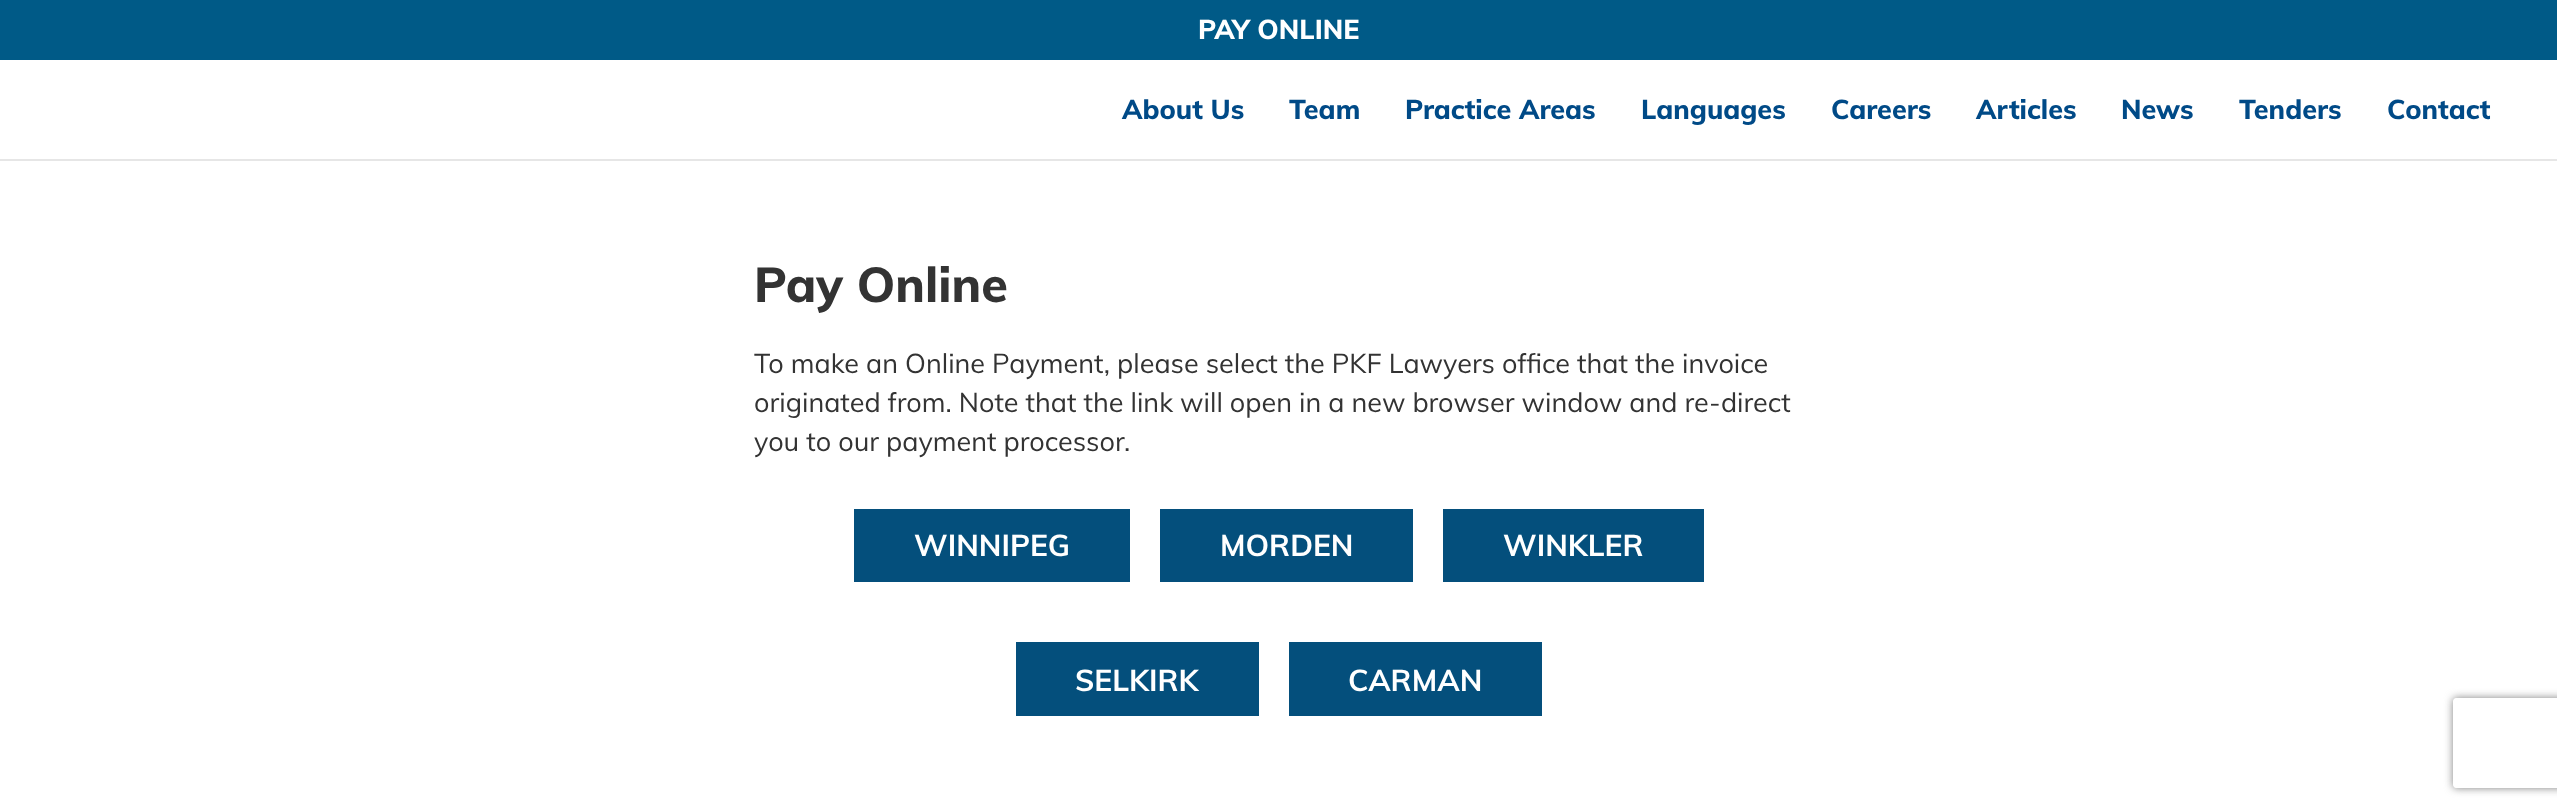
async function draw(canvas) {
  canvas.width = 2557
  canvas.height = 808
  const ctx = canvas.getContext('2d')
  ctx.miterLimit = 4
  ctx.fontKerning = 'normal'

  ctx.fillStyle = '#fff'
  ctx.fillRect(0, 0, 2557, 808)
  ctx.fillStyle = '#005a87'
  ctx.fillRect(0, 0, 2557, 60)
  ctx.font = '800 27px Muli'
  ctx.fillStyle = '#fff'
  ctx.fillText('PAY ONLINE', 1198, 39)
  ctx.fillStyle = '#e6e6e6'
  ctx.fillRect(0, 159, 2557, 2)
  ctx.fillStyle = '#004a87'
  ctx.fillText('About Us', 1122, 119)
  ctx.fillText('Team', 1289, 119)
  ctx.fillText('Practice Areas', 1405, 119)
  ctx.fillText('Languages', 1641, 119)
  ctx.fillText('Careers', 1831, 119)
  ctx.fillText('Articles', 1976, 119)
  ctx.fillText('News', 2121, 119)
  ctx.fillText('Tenders', 2239, 119)
  ctx.fillText('Contact', 2387, 119)
  ctx.font = '800 48.5px Muli'
  ctx.fillStyle = '#333'
  ctx.fillText('Pay Online', 754, 302)
  ctx.font = '27px Muli'
  ctx.fillText('To make an Online Payment, please select the PKF Lawyers office that the invoice', 754, 373)
  ctx.fillText('originated from. Note that the link will open in a new browser window and re-direct', 754, 412)
  ctx.fillText('you to our payment processor.', 754, 451)
  ctx.fillStyle = '#044f7c'
  ctx.fillRect(854, 509, 276, 73)
  ctx.font = 'bold 30px Muli'
  ctx.fillStyle = '#fff'
  ctx.fillText('WINNIPEG', 914, 556)
  ctx.fillStyle = '#044f7c'
  ctx.fillRect(1160, 509, 253, 73)
  ctx.fillStyle = '#fff'
  ctx.fillText('MORDEN', 1220, 556)
  ctx.fillStyle = '#044f7c'
  ctx.fillRect(1443, 509, 261, 73)
  ctx.fillStyle = '#fff'
  ctx.fillText('WINKLER', 1503, 556)
  ctx.fillStyle = '#044f7c'
  ctx.fillRect(1016, 642, 243, 74)
  ctx.fillStyle = '#fff'
  ctx.fillText('SELKIRK', 1075, 691)
  ctx.fillStyle = '#044f7c'
  ctx.fillRect(1289, 642, 253, 74)
  ctx.fillStyle = '#fff'
  ctx.fillText('CARMAN', 1348, 691)
  ctx.save()
  ctx.beginPath()
  ctx.moveTo(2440, 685)
  ctx.lineTo(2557, 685)
  ctx.lineTo(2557, 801)
  ctx.lineTo(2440, 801)
  ctx.closePath()
  ctx.moveTo(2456, 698)
  ctx.lineTo(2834, 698)
  ctx.bezierCurveTo(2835.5, 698, 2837, 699.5, 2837, 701)
  ctx.lineTo(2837, 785)
  ctx.bezierCurveTo(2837, 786.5, 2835.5, 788, 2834, 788)
  ctx.lineTo(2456, 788)
  ctx.bezierCurveTo(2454.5, 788, 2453, 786.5, 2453, 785)
  ctx.lineTo(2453, 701)
  ctx.bezierCurveTo(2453, 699.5, 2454.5, 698, 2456, 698)
  ctx.closePath()
  ctx.clip('evenodd')
  ctx.fillStyle = '#808080'
  ctx.filter = 'blur(4px)'
  ctx.beginPath()
  ctx.roundRect(2453, 698, 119, 90, 3)
  ctx.fill()
  ctx.filter = 'none'
  ctx.restore()
}

draw(document.querySelector('canvas'))
